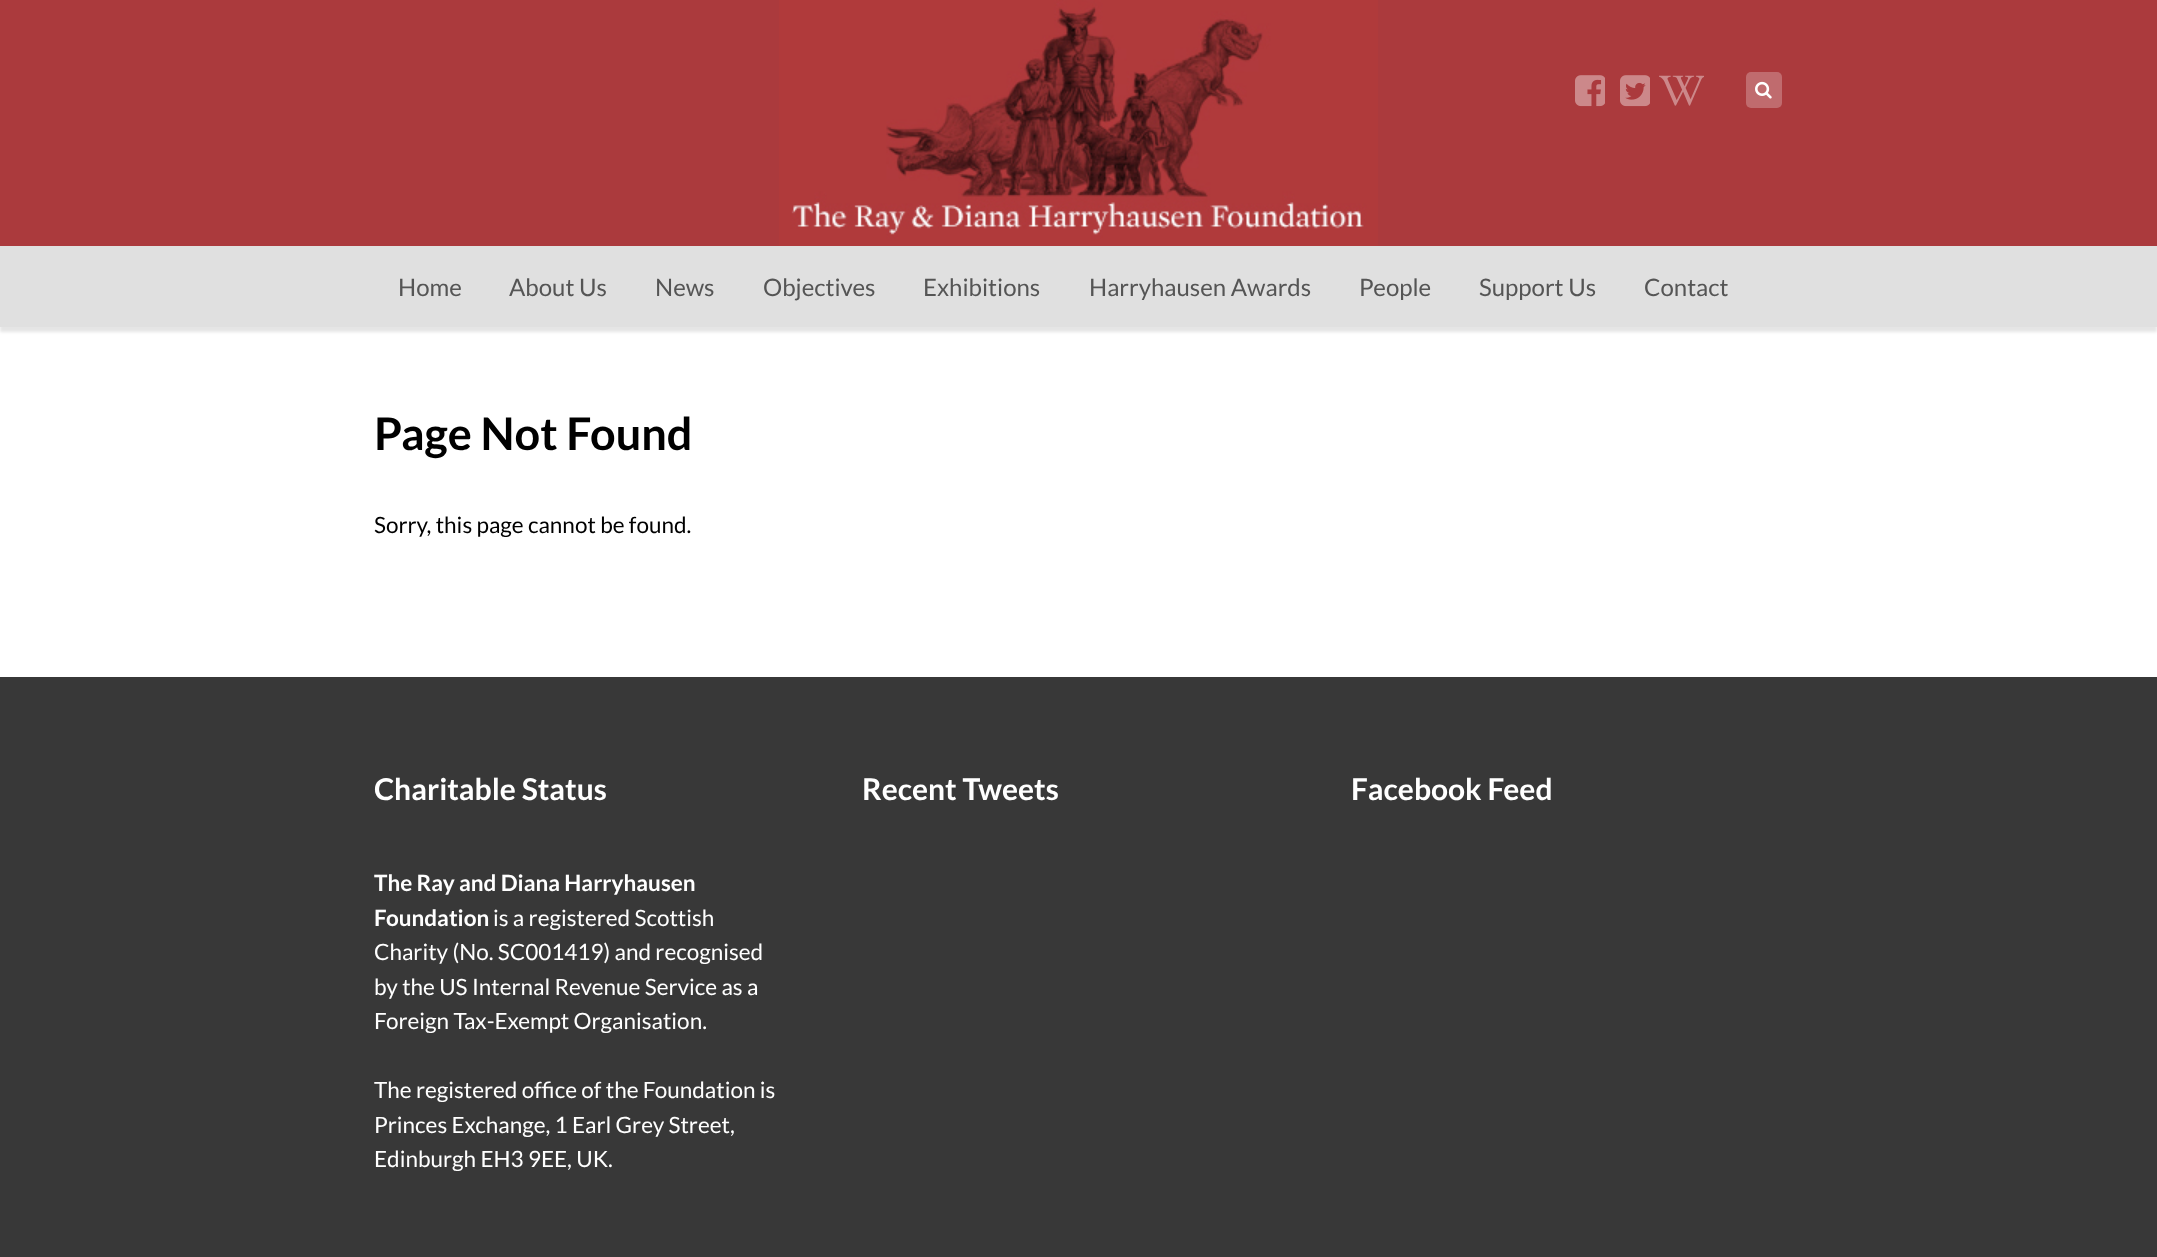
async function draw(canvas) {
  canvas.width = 2157
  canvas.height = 1257
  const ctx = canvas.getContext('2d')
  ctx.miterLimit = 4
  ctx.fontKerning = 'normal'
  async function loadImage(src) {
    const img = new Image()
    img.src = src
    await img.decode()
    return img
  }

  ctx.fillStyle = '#fff'
  ctx.fillRect(0, 0, 2157, 1257)
  ctx.fillStyle = '#ab3a3d'
  ctx.fillRect(0, 0, 2157, 246)
  ctx.drawImage(await loadImage('image0.png'), 779, 0, 599, 246)
  ctx.drawImage(await loadImage('image1.png'), 1575, 75, 30, 32)
  ctx.drawImage(await loadImage('image2.png'), 1620, 75, 30, 32)
  ctx.drawImage(await loadImage('image3.png'), 1659, 75, 45, 31)
  ctx.fillStyle = '#c06b6e'
  ctx.beginPath()
  ctx.roundRect(1746, 72, 36, 36, 5)
  ctx.fill()
  ctx.drawImage(await loadImage('image4.png'), 1755, 81, 17, 18)
  ctx.fillStyle = '#0000001a'
  ctx.filter = 'blur(1.5px)'
  ctx.beginPath()
  ctx.rect(0, 251, 2157, 81)
  ctx.fill()
  ctx.filter = 'none'
  ctx.fillStyle = '#e0e0e0'
  ctx.fillRect(0, 246, 2157, 81)
  ctx.font = '24px Lato'
  ctx.fillStyle = '#555'
  ctx.fillText('Home', 398, 296)
  ctx.fillText('About Us', 509, 296)
  ctx.fillText('News', 655, 296)
  ctx.fillText('Objectives', 763, 296)
  ctx.fillText('Exhibitions', 923, 296)
  ctx.fillText('Harryhausen Awards', 1089, 296)
  ctx.fillText('People', 1359, 296)
  ctx.fillText('Support Us', 1479, 296)
  ctx.fillText('Contact', 1644, 296)
  ctx.font = 'bold 45px Lato'
  ctx.fillStyle = '#000'
  ctx.fillText('Page Not Found', 374, 450)
  ctx.font = '22.5px Lato'
  ctx.fillText('Sorry, this page cannot be found.', 374, 533)
  ctx.fillStyle = '#383838'
  ctx.fillRect(0, 677, 2157, 580)
  ctx.font = 'bold 30px Lato'
  ctx.fillStyle = '#fff'
  ctx.fillText('Charitable Status', 374, 800)
  ctx.font = 'bold 22.5px Lato'
  ctx.fillText('The Ray and Diana Harryhausen', 374, 891)
  ctx.fillText('Foundation', 374, 926)
  ctx.font = '22.5px Lato'
  ctx.fillText('is a registered Scottish', 493, 926)
  ctx.fillText('Charity (No. SC001419) and recognised', 374, 960)
  ctx.fillText('by the US Internal Revenue Service as a', 374, 995)
  ctx.fillText('Foreign Tax-Exempt Organisation.', 374, 1029)
  ctx.fillText('The registered office of the Foundation is', 374, 1098)
  ctx.fillText('Princes Exchange, 1 Earl Grey Street,', 374, 1133)
  ctx.fillText('Edinburgh EH3 9EE, UK.', 374, 1167)
  ctx.font = 'bold 30px Lato'
  ctx.fillText('Recent Tweets', 862, 800)
  ctx.fillText('Facebook Feed', 1351, 800)
}

draw(document.querySelector('canvas'))
